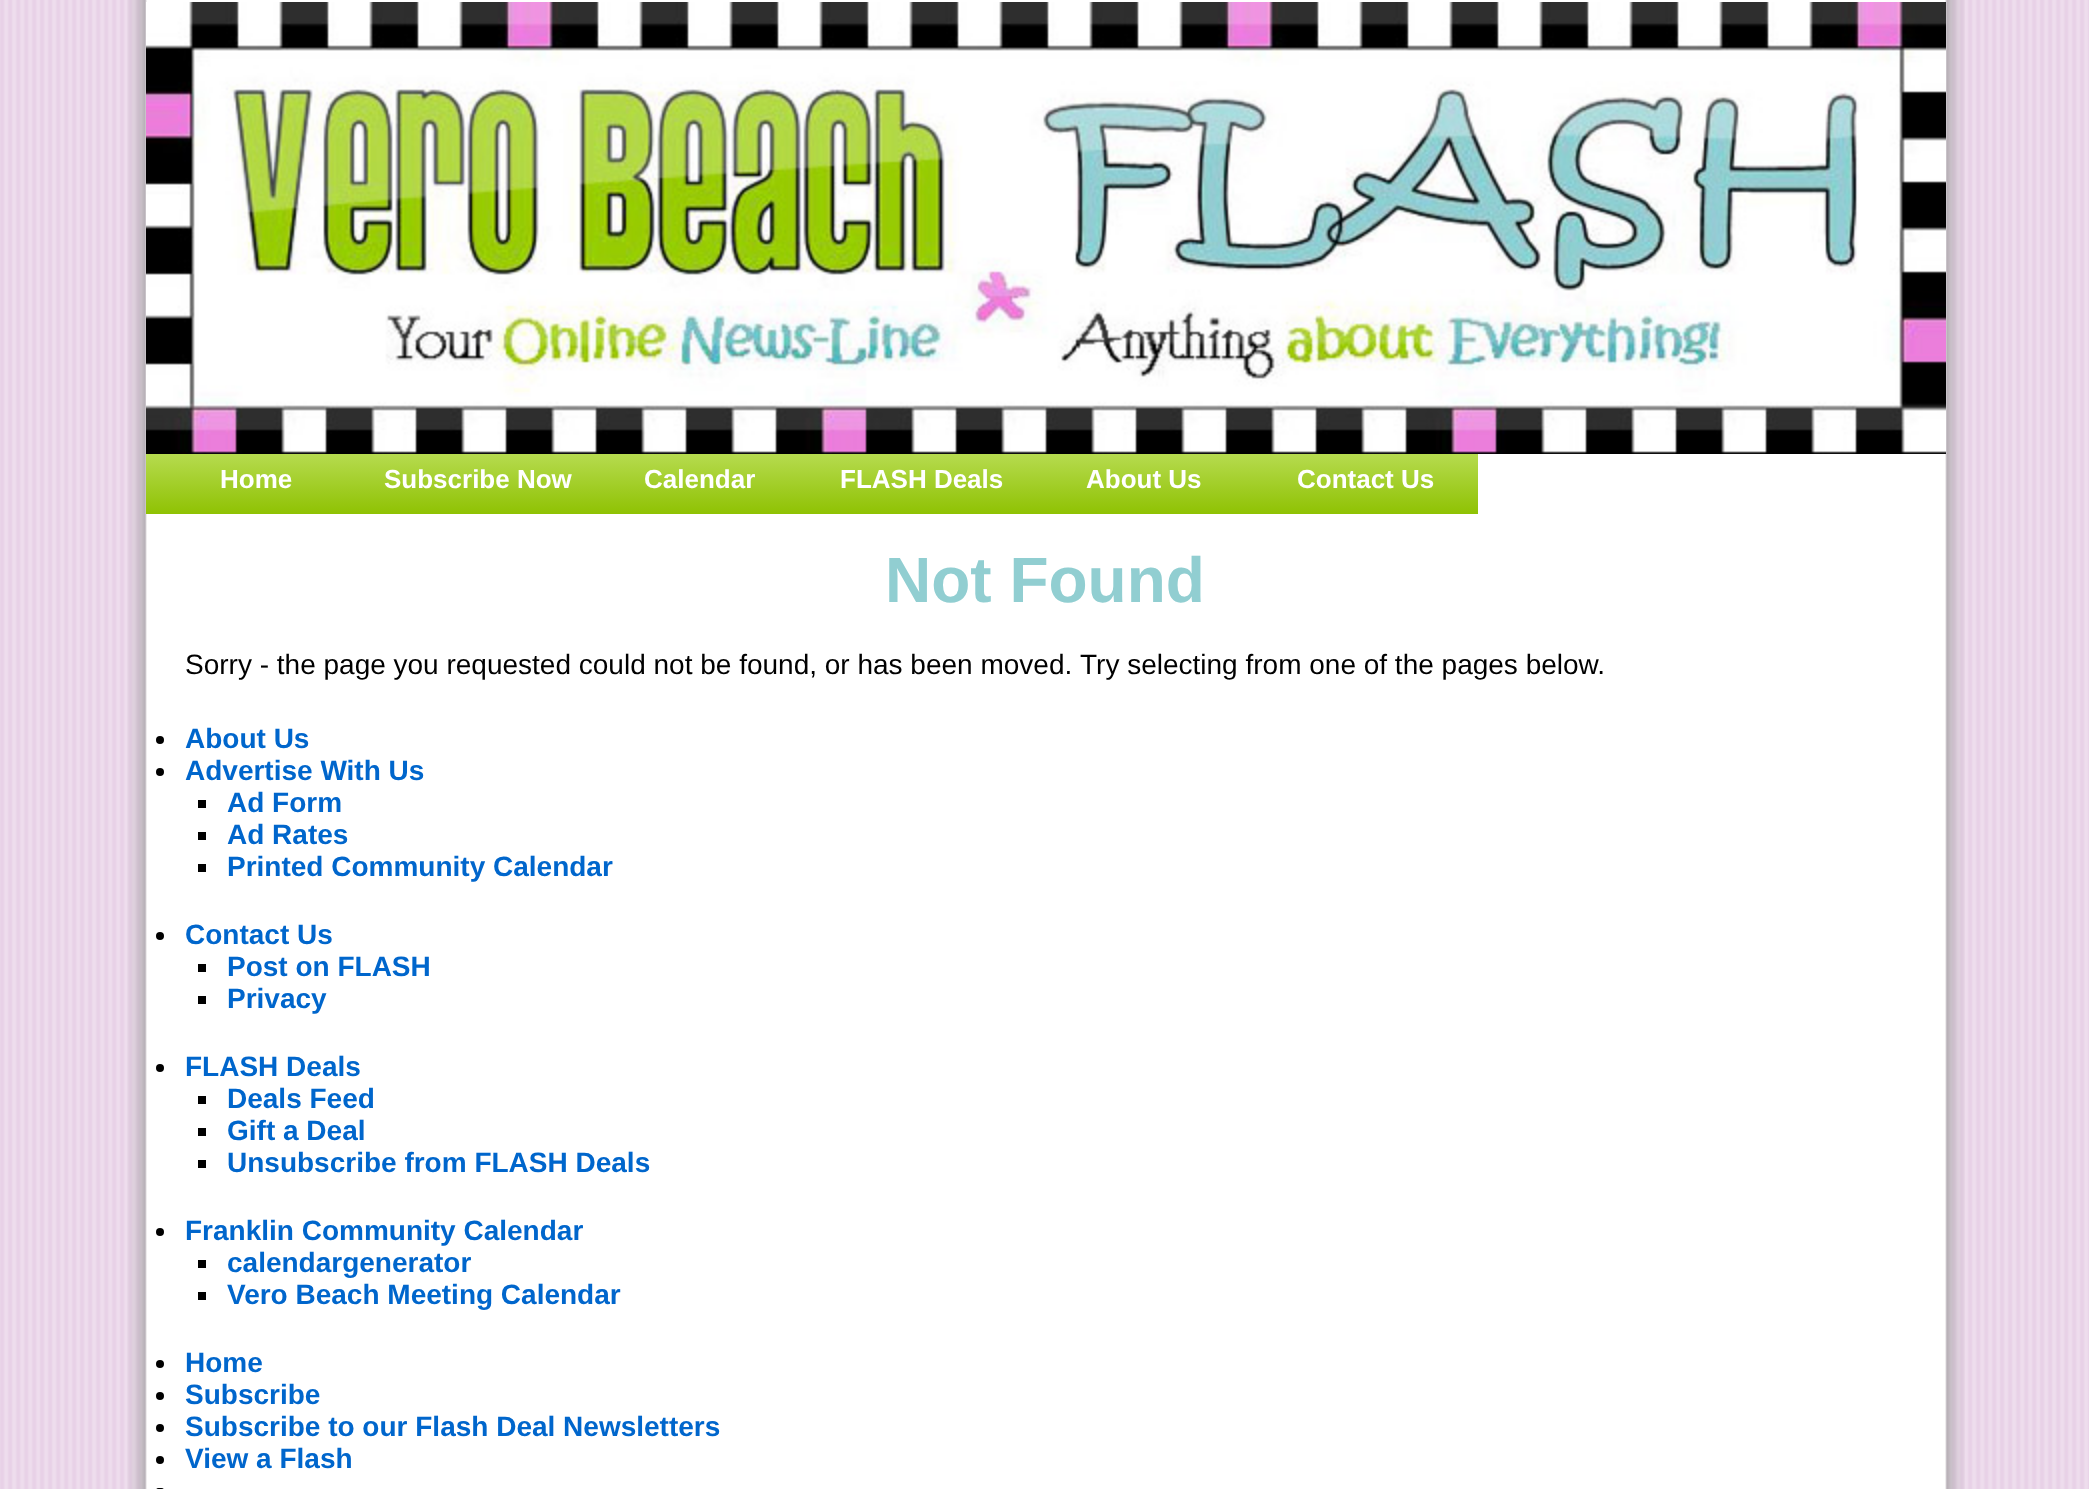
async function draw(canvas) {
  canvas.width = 2089
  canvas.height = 1489
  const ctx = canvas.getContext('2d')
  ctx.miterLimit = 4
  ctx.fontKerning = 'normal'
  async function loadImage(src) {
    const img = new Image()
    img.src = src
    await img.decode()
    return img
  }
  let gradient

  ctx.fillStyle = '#fff'
  ctx.fillRect(0, 0, 2089, 1489)
  ctx.drawImage(await loadImage('image0.png'), 0, 0, 2089, 1489)
  ctx.drawImage(await loadImage('image1.png'), 127, 0, 1838, 1489)
  ctx.drawImage(await loadImage('image2.png'), 146, 2, 1800, 452)
  gradient = ctx.createLinearGradient(146, 454, 146, 514)
  gradient.addColorStop(0, '#b6db4f')
  gradient.addColorStop(1, '#8fc203')
  ctx.fillStyle = gradient
  ctx.fillRect(146, 454, 222, 60)
  ctx.font = 'bold 26px Liberation Sans'
  ctx.fillStyle = '#fff'
  ctx.fillText('Home', 220, 488)
  gradient = ctx.createLinearGradient(368, 454, 368, 514)
  gradient.addColorStop(0, '#b6db4f')
  gradient.addColorStop(1, '#8fc203')
  ctx.fillStyle = gradient
  ctx.fillRect(368, 454, 222, 60)
  ctx.fillStyle = '#fff'
  ctx.fillText('Subscribe Now', 384, 488)
  gradient = ctx.createLinearGradient(590, 454, 590, 514)
  gradient.addColorStop(0, '#b6db4f')
  gradient.addColorStop(1, '#8fc203')
  ctx.fillStyle = gradient
  ctx.fillRect(590, 454, 222, 60)
  ctx.fillStyle = '#fff'
  ctx.fillText('Calendar', 644, 488)
  gradient = ctx.createLinearGradient(812, 454, 812, 514)
  gradient.addColorStop(0, '#b6db4f')
  gradient.addColorStop(1, '#8fc203')
  ctx.fillStyle = gradient
  ctx.fillRect(812, 454, 222, 60)
  ctx.fillStyle = '#fff'
  ctx.fillText('FLASH Deals', 840, 488)
  gradient = ctx.createLinearGradient(1034, 454, 1034, 514)
  gradient.addColorStop(0, '#b6db4f')
  gradient.addColorStop(1, '#8fc203')
  ctx.fillStyle = gradient
  ctx.fillRect(1034, 454, 222, 60)
  ctx.fillStyle = '#fff'
  ctx.fillText('About Us', 1086, 488)
  gradient = ctx.createLinearGradient(1256, 454, 1256, 514)
  gradient.addColorStop(0, '#b6db4f')
  gradient.addColorStop(1, '#8fc203')
  ctx.fillStyle = gradient
  ctx.fillRect(1256, 454, 222, 60)
  ctx.fillStyle = '#fff'
  ctx.fillText('Contact Us', 1297, 488)
  ctx.font = 'bold 64px Liberation Sans'
  ctx.fillStyle = '#91ced1'
  ctx.fillText('Not Found', 885, 602)
  ctx.font = '28px Liberation Sans'
  ctx.fillStyle = '#000'
  ctx.fillText('Sorry - the page you requested could not be found, or has been moved.', 185, 674)
  ctx.fillText('Try selecting from one of the pages below.', 1080, 674)
  ctx.beginPath()
  ctx.arc(160, 740, 4, 0, 2 * Math.PI)
  ctx.fill()
  ctx.font = 'bold 28px Liberation Sans'
  ctx.fillStyle = '#06c'
  ctx.fillText('About Us', 185, 748)
  ctx.fillStyle = '#000'
  ctx.beginPath()
  ctx.arc(160, 772, 4, 0, 2 * Math.PI)
  ctx.fill()
  ctx.fillStyle = '#06c'
  ctx.fillText('Advertise With Us', 185, 780)
  ctx.fillStyle = '#000'
  ctx.fillRect(198, 800, 8, 8)
  ctx.fillStyle = '#06c'
  ctx.fillText('Ad Form', 227, 812)
  ctx.fillStyle = '#000'
  ctx.fillRect(198, 832, 8, 8)
  ctx.fillStyle = '#06c'
  ctx.fillText('Ad Rates', 227, 844)
  ctx.fillStyle = '#000'
  ctx.fillRect(198, 864, 8, 8)
  ctx.fillStyle = '#06c'
  ctx.fillText('Printed Community Calendar', 227, 876)
  ctx.fillStyle = '#000'
  ctx.beginPath()
  ctx.arc(160, 936, 4, 0, 2 * Math.PI)
  ctx.fill()
  ctx.fillStyle = '#06c'
  ctx.fillText('Contact Us', 185, 944)
  ctx.fillStyle = '#000'
  ctx.fillRect(198, 964, 8, 8)
  ctx.fillStyle = '#06c'
  ctx.fillText('Post on FLASH', 227, 976)
  ctx.fillStyle = '#000'
  ctx.fillRect(198, 996, 8, 8)
  ctx.fillStyle = '#06c'
  ctx.fillText('Privacy', 227, 1008)
  ctx.fillStyle = '#000'
  ctx.beginPath()
  ctx.arc(160, 1068, 4, 0, 2 * Math.PI)
  ctx.fill()
  ctx.fillStyle = '#06c'
  ctx.fillText('FLASH Deals', 185, 1076)
  ctx.fillStyle = '#000'
  ctx.fillRect(198, 1096, 8, 8)
  ctx.fillStyle = '#06c'
  ctx.fillText('Deals Feed', 227, 1108)
  ctx.fillStyle = '#000'
  ctx.fillRect(198, 1128, 8, 8)
  ctx.fillStyle = '#06c'
  ctx.fillText('Gift a Deal', 227, 1140)
  ctx.fillStyle = '#000'
  ctx.fillRect(198, 1160, 8, 8)
  ctx.fillStyle = '#06c'
  ctx.fillText('Unsubscribe from FLASH Deals', 227, 1172)
  ctx.fillStyle = '#000'
  ctx.beginPath()
  ctx.arc(160, 1232, 4, 0, 2 * Math.PI)
  ctx.fill()
  ctx.fillStyle = '#06c'
  ctx.fillText('Franklin Community Calendar', 185, 1240)
  ctx.fillStyle = '#000'
  ctx.fillRect(198, 1260, 8, 8)
  ctx.fillStyle = '#06c'
  ctx.fillText('calendargenerator', 227, 1272)
  ctx.fillStyle = '#000'
  ctx.fillRect(198, 1292, 8, 8)
  ctx.fillStyle = '#06c'
  ctx.fillText('Vero Beach Meeting Calendar', 227, 1304)
  ctx.fillStyle = '#000'
  ctx.beginPath()
  ctx.arc(160, 1364, 4, 0, 2 * Math.PI)
  ctx.fill()
  ctx.fillStyle = '#06c'
  ctx.fillText('Home', 185, 1372)
  ctx.fillStyle = '#000'
  ctx.beginPath()
  ctx.arc(160, 1396, 4, 0, 2 * Math.PI)
  ctx.fill()
  ctx.fillStyle = '#06c'
  ctx.fillText('Subscribe', 185, 1404)
  ctx.fillStyle = '#000'
  ctx.beginPath()
  ctx.arc(160, 1428, 4, 0, 2 * Math.PI)
  ctx.fill()
  ctx.fillStyle = '#06c'
  ctx.fillText('Subscribe to our Flash Deal Newsletters', 185, 1436)
  ctx.fillStyle = '#000'
  ctx.beginPath()
  ctx.arc(160, 1460, 4, 0, 2 * Math.PI)
  ctx.fill()
  ctx.fillStyle = '#06c'
  ctx.fillText('View a Flash', 185, 1468)
  ctx.fillStyle = '#000'
  ctx.beginPath()
  ctx.roundRect(156, 1488, 8, 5, 4)
  ctx.fill()
}

draw(document.querySelector('canvas'))
